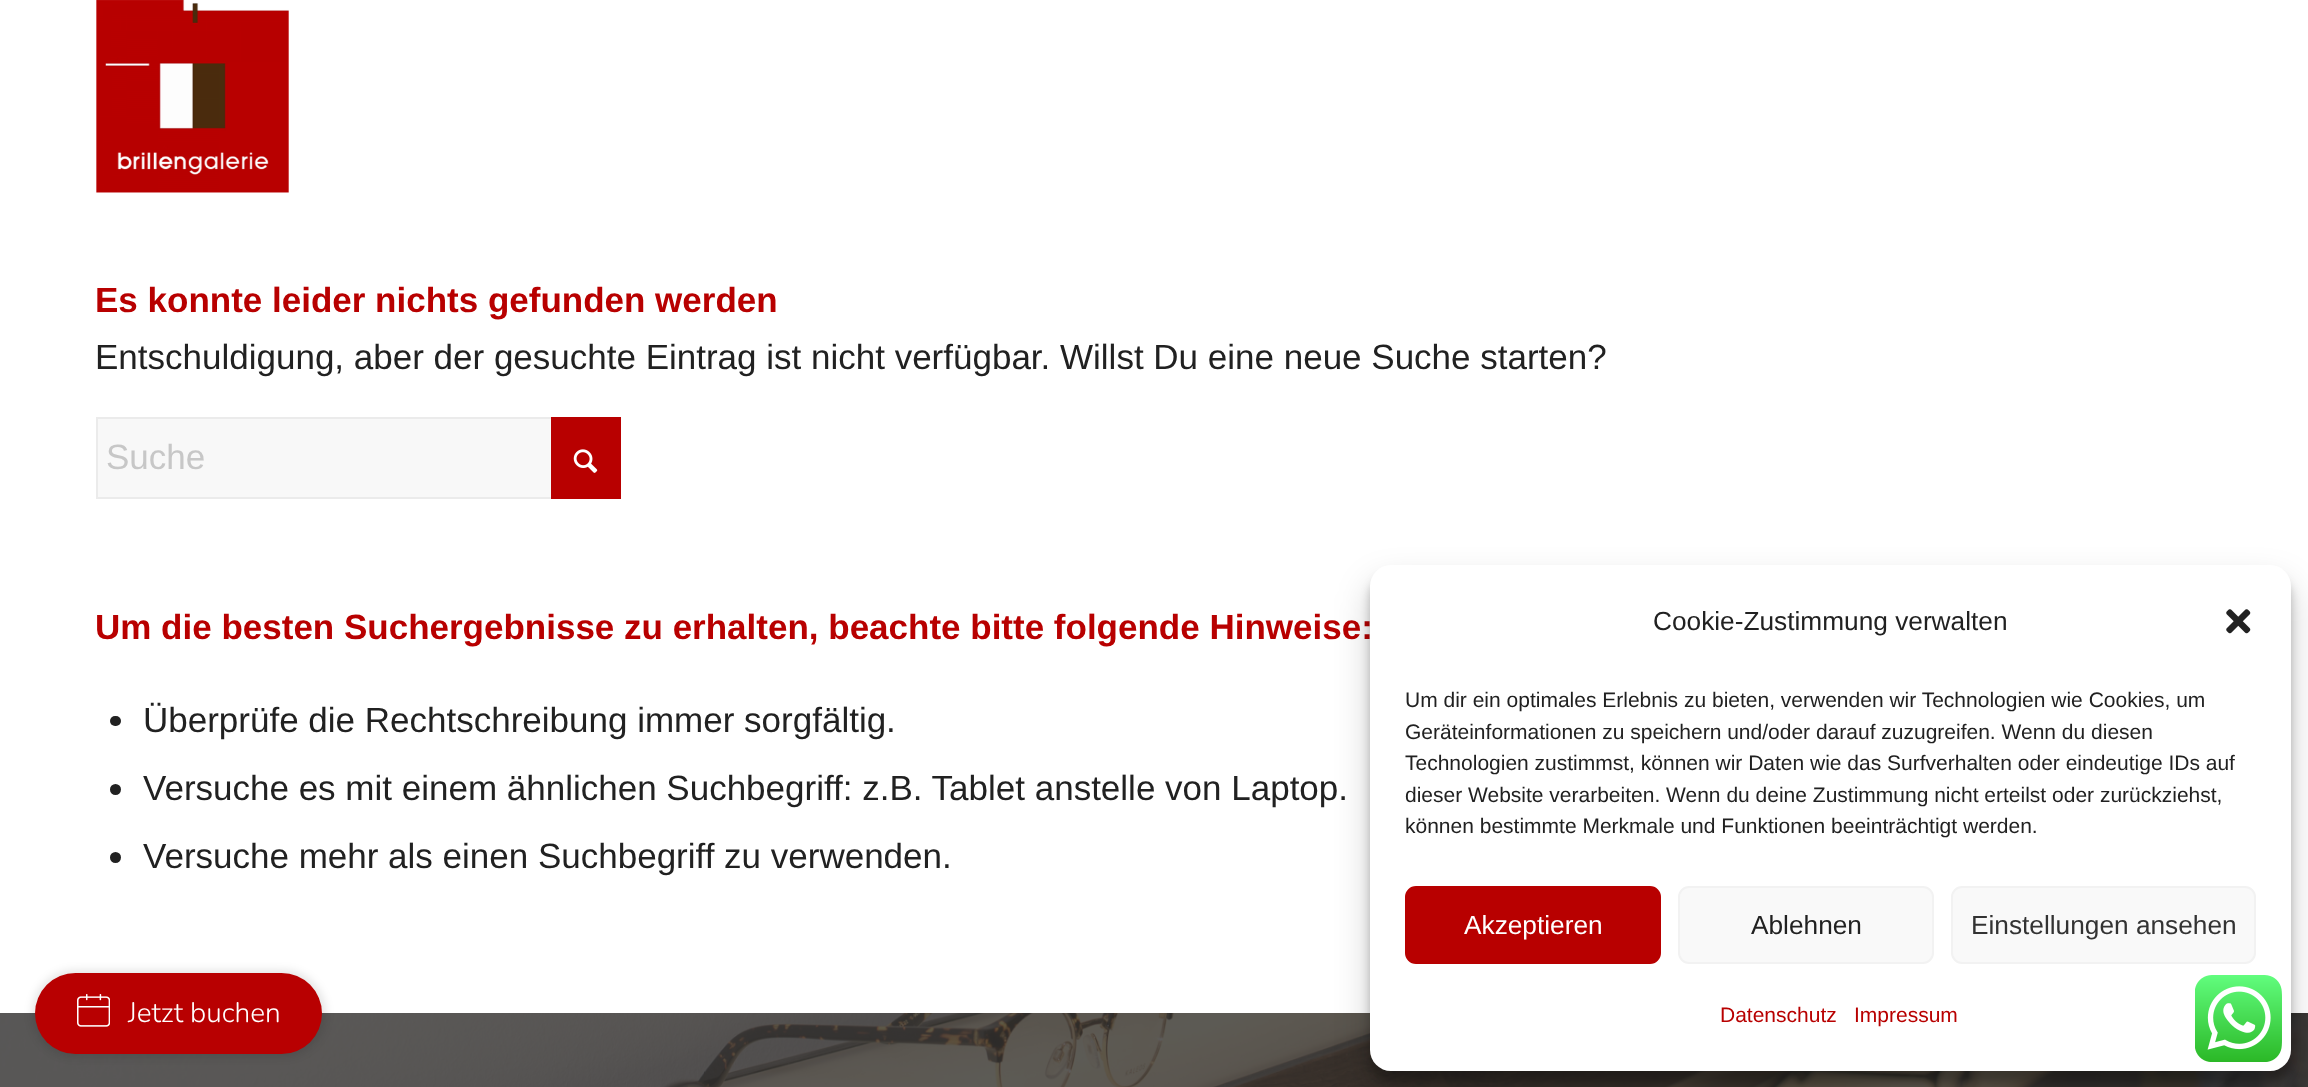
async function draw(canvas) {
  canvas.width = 2308
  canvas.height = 1087
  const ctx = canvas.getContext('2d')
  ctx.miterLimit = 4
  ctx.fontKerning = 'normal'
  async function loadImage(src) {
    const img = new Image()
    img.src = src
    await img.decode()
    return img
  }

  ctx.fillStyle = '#fff'
  ctx.fillRect(0, 0, 2308, 1087)
  ctx.drawImage(await loadImage('image0.png'), 96, 0, 193, 193)
  ctx.font = 'bold 35px Liberation Sans'
  ctx.fillStyle = '#b80000'
  ctx.fillText('Es konnte leider nichts gefunden werden', 95, 312)
  ctx.font = '35px Liberation Sans'
  ctx.fillStyle = '#212121'
  ctx.fillText('Entschuldigung, aber der gesuchte Eintrag ist nicht verfügbar. Willst Du eine neue Suche starten?', 95, 369)
  ctx.fillStyle = '#f8f8f8'
  ctx.fillRect(98, 419, 453, 78)
  ctx.strokeStyle = '#ebebeb'
  ctx.lineWidth = 2
  ctx.strokeRect(97, 418, 523, 80)
  ctx.fillStyle = '#c7c7c7'
  ctx.fillText('Suche', 106, 469)
  ctx.fillStyle = '#b80000'
  ctx.fillRect(551, 417, 70, 82)
  ctx.drawImage(await loadImage('image1.png'), 573, 449, 25, 24)
  ctx.font = 'bold 35px Liberation Sans'
  ctx.fillText('Um die besten Suchergebnisse zu erhalten, beachte bitte folgende Hinweise:', 95, 639)
  ctx.fillStyle = '#212121'
  ctx.beginPath()
  ctx.roundRect(110, 716, 11, 10, 5)
  ctx.fill()
  ctx.font = '35px Liberation Sans'
  ctx.fillText('Überprüfe die Rechtschreibung immer sorgfältig.', 143, 732)
  ctx.beginPath()
  ctx.arc(115.5, 789.5, 5.5, 0, 2 * Math.PI)
  ctx.fill()
  ctx.fillText('Versuche es mit einem ähnlichen Suchbegriff: z.B. Tablet anstelle von Laptop.', 143, 800)
  ctx.beginPath()
  ctx.arc(115.5, 857.5, 5.5, 0, 2 * Math.PI)
  ctx.fill()
  ctx.fillText('Versuche mehr als einen Suchbegriff zu verwenden.', 143, 868)
  ctx.drawImage(await loadImage('image2.png'), 0, 1013, 2308, 74)
  ctx.fillStyle = '#0000003b'
  ctx.filter = 'blur(5px)'
  ctx.beginPath()
  ctx.roundRect(1370, 576, 921, 506, 21)
  ctx.fill()
  ctx.filter = 'none'
  ctx.fillStyle = '#00000030'
  ctx.filter = 'blur(17.5px)'
  ctx.beginPath()
  ctx.roundRect(1370, 583, 921, 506, 21)
  ctx.fill()
  ctx.filter = 'none'
  ctx.fillStyle = '#fff'
  ctx.beginPath()
  ctx.roundRect(1370, 565, 921, 506, 21)
  ctx.fill()
  ctx.font = '26.25px Liberation Sans'
  ctx.fillStyle = '#212121'
  ctx.fillText('Cookie-Zustimmung verwalten', 1653, 630)
  ctx.drawImage(await loadImage('image3.png'), 2226, 609, 25, 25)
  ctx.font = '21px Liberation Sans'
  ctx.fillText('Um dir ein optimales Erlebnis zu bieten, verwenden wir Technologien wie Cookies, um', 1405, 707)
  ctx.fillText('Geräteinformationen zu speichern und/oder darauf zuzugreifen. Wenn du diesen', 1405, 739)
  ctx.fillText('Technologien zustimmst, können wir Daten wie das Surfverhalten oder eindeutige IDs auf', 1405, 770)
  ctx.fillText('dieser Website verarbeiten. Wenn du deine Zustimmung nicht erteilst oder zurückziehst,', 1405, 802)
  ctx.fillText('können bestimmte Merkmale und Funktionen beeinträchtigt werden.', 1405, 833)
  ctx.fillStyle = '#b80000'
  ctx.beginPath()
  ctx.roundRect(1406, 887, 254, 76, 10)
  ctx.fill()
  ctx.strokeStyle = '#b80000'
  ctx.stroke()
  ctx.font = '26.25px Liberation Sans'
  ctx.fillStyle = '#fff'
  ctx.fillText('Akzeptieren', 1464, 934)
  ctx.fillStyle = '#f9f9f9'
  ctx.beginPath()
  ctx.roundRect(1679, 887, 254, 76, 10)
  ctx.fill()
  ctx.strokeStyle = '#f2f2f2'
  ctx.stroke()
  ctx.fillStyle = '#212121'
  ctx.fillText('Ablehnen', 1751, 934)
  ctx.fillStyle = '#f9f9f9'
  ctx.beginPath()
  ctx.roundRect(1952, 887, 303, 76, 10)
  ctx.fill()
  ctx.stroke()
  ctx.fillStyle = '#333'
  ctx.fillText('Einstellungen ansehen', 1971, 934)
  ctx.font = '21px Liberation Sans'
  ctx.fillStyle = '#b80000'
  ctx.fillText('Datenschutz', 1720, 1022)
  ctx.fillText('Impressum', 1854, 1022)
  ctx.drawImage(await loadImage('image4.png'), 2195, 975, 87, 87)
  ctx.fillStyle = '#0000001a'
  ctx.filter = 'blur(4.5px)'
  ctx.beginPath()
  ctx.roundRect(32, 970, 294, 87, 43.5)
  ctx.fill()
  ctx.filter = 'none'
  ctx.fillStyle = '#b80001'
  ctx.beginPath()
  ctx.roundRect(35, 973, 287, 81, 40.5)
  ctx.fill()
  ctx.drawImage(await loadImage('image5.png'), 77, 994, 33, 33)
  ctx.font = '300 28px Nunito'
  ctx.fillStyle = '#fff'
  ctx.fillText('Jetzt buchen', 128, 1022)
}

draw(document.querySelector('canvas'))
